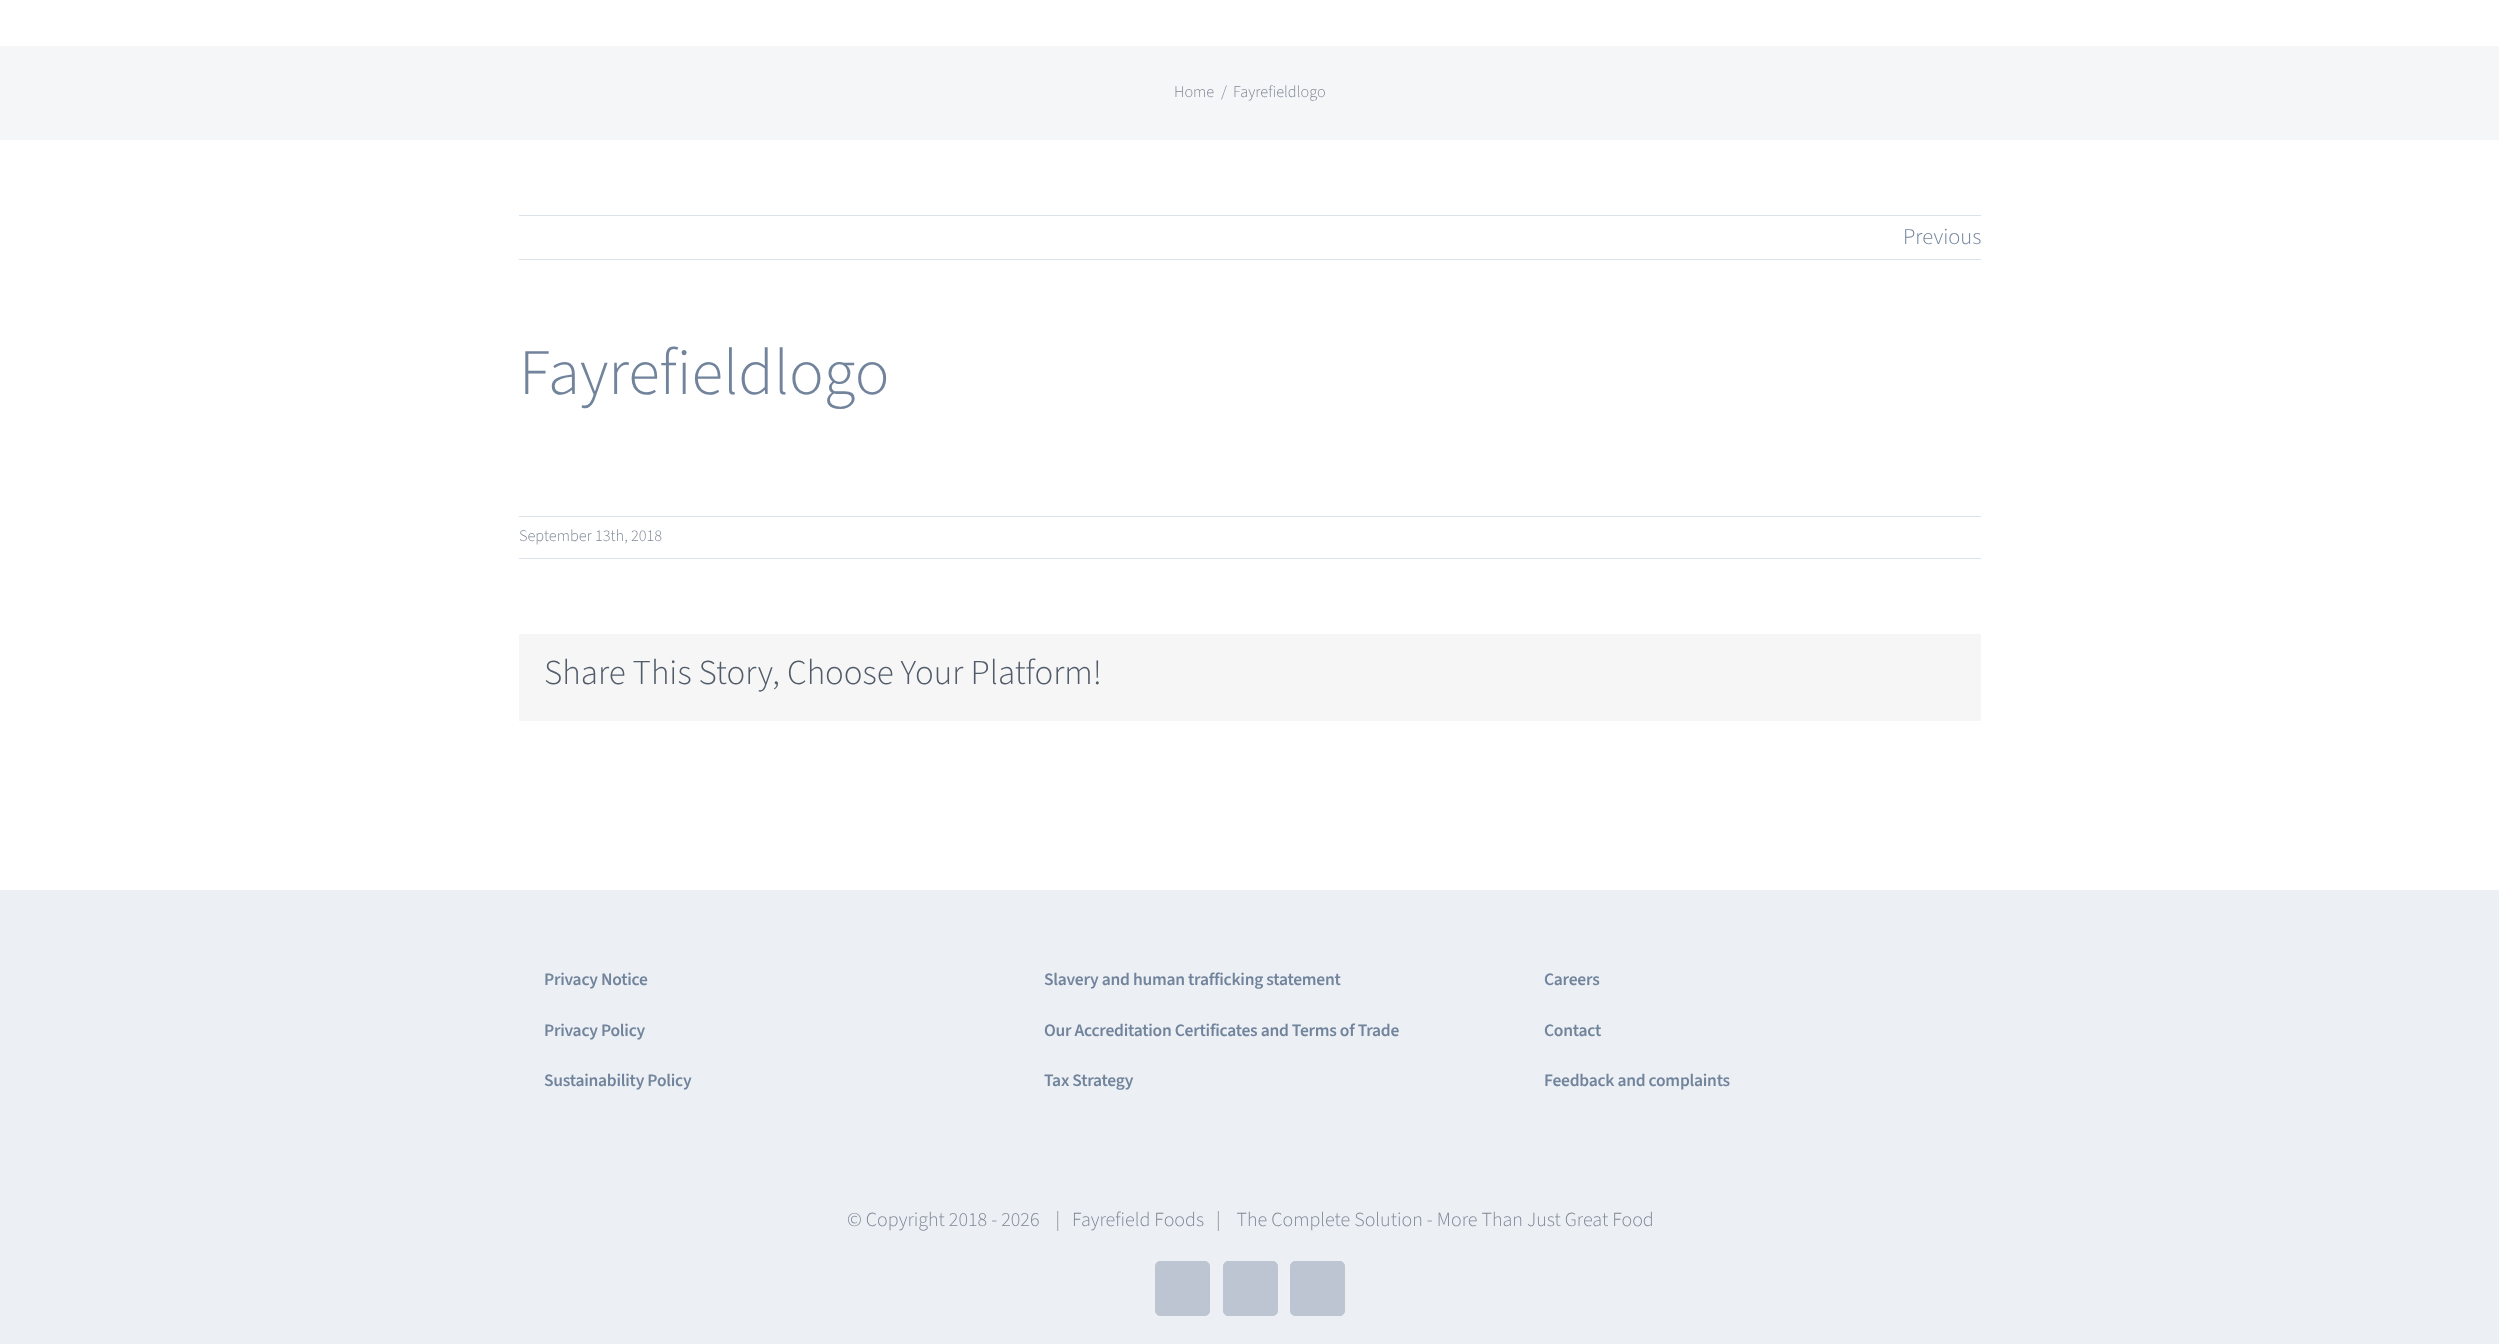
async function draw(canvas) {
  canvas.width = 2499
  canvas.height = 1344
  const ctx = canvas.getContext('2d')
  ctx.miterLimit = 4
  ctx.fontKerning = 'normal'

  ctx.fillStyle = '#fff'
  ctx.fillRect(0, 0, 2499, 1344)
  ctx.fillStyle = '#f4f6f8'
  ctx.fillRect(0, 46, 2499, 94)
  ctx.font = '300 16.25px "Source Sans 3"'
  ctx.fillStyle = '#7f8795'
  ctx.fillText('Home', 1174, 97)
  ctx.fillText('/', 1221, 97)
  ctx.fillText('Fayrefieldlogo', 1233, 97)
  ctx.fillStyle = '#dbe2ea'
  ctx.fillRect(519, 215, 1462, 1)
  ctx.fillRect(519, 259, 1462, 1)
  ctx.font = '300 22.5px "Source Sans 3"'
  ctx.fillStyle = '#72849c'
  ctx.fillText('Previous', 1903, 244)
  ctx.font = '300 65px "Source Sans 3"'
  ctx.fillText('Fayrefieldlogo', 519, 394)
  ctx.fillStyle = '#dbe2ea'
  ctx.fillRect(519, 516, 1462, 1)
  ctx.fillRect(519, 558, 1462, 1)
  ctx.font = '300 16.25px "Source Sans 3"'
  ctx.fillStyle = '#7f8795'
  ctx.fillText('September 13th, 2018', 519, 541)
  ctx.fillStyle = '#f6f6f6'
  ctx.fillRect(519, 634, 1462, 87)
  ctx.font = '300 35px "Source Sans 3"'
  ctx.fillStyle = '#515b69'
  ctx.fillText('Share This Story, Choose Your Platform!', 544, 684)
  ctx.fillStyle = '#ecf0f5'
  ctx.fillRect(0, 890, 2499, 454)
  ctx.letterSpacing = '-0.25px'
  ctx.font = '600 17.5px "Source Sans 3"'
  ctx.fillStyle = '#72849c'
  ctx.fillText('Privacy Notice', 544, 985)
  ctx.fillText('Privacy Policy', 544, 1036)
  ctx.fillText('Sustainability Policy', 544, 1086)
  ctx.fillText('Slavery and human trafficking statement', 1044, 985)
  ctx.fillText('Our Accreditation Certificates and Terms of Trade', 1044, 1036)
  ctx.fillText('Tax Strategy', 1044, 1086)
  ctx.fillText('Careers', 1544, 985)
  ctx.fillText('Contact', 1544, 1036)
  ctx.fillText('Feedback and complaints', 1544, 1086)
  ctx.letterSpacing = '0px'
  ctx.font = '300 20px "Source Sans 3"'
  ctx.fillStyle = '#7f8795'
  ctx.fillText('© Copyright 2018 - 2026    |   Fayrefield Foods   |    The Complete Solution - More Than Just Great Food', 847, 1226)
  ctx.fillStyle = '#bcc5d1'
  ctx.beginPath()
  ctx.roundRect(1155.5, 1261.5, 54, 54, 4.5)
  ctx.fill()
  ctx.strokeStyle = '#bcc5d1'
  ctx.stroke()
  ctx.beginPath()
  ctx.roundRect(1223.5, 1261.5, 54, 54, 4.5)
  ctx.fill()
  ctx.stroke()
  ctx.beginPath()
  ctx.roundRect(1290.5, 1261.5, 54, 54, 4.5)
  ctx.fill()
  ctx.stroke()
}

draw(document.querySelector('canvas'))
